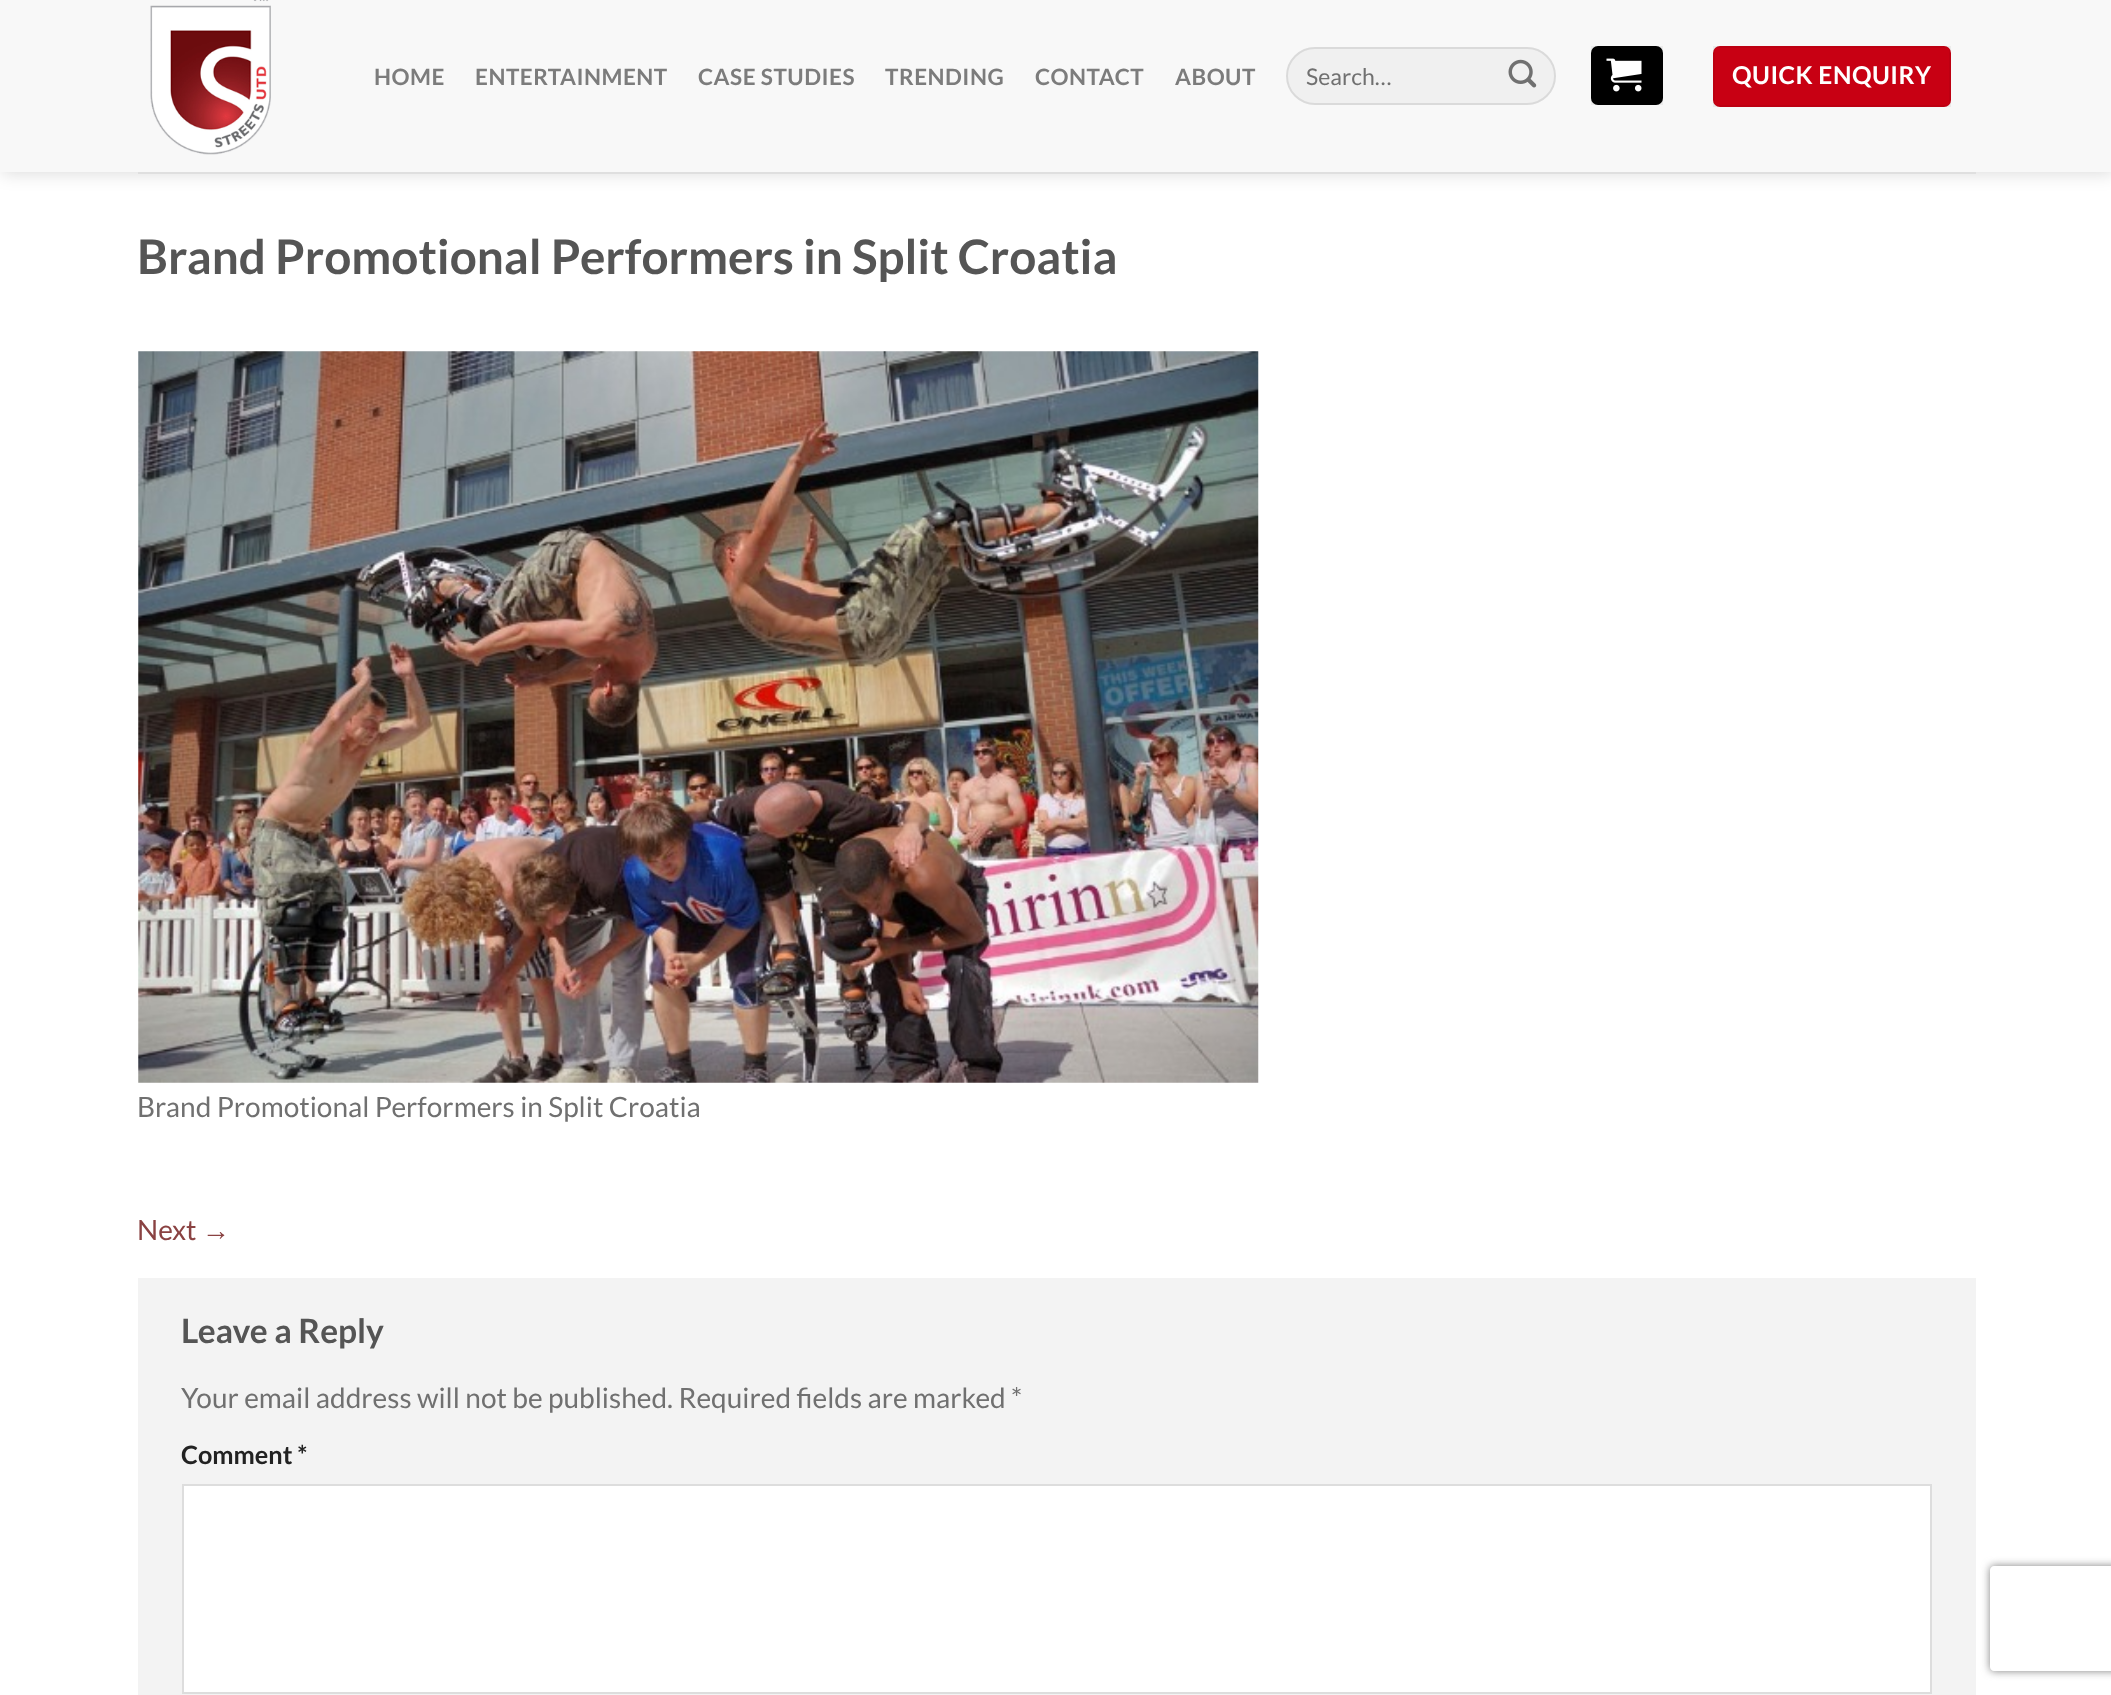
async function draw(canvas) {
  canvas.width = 2111
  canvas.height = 1695
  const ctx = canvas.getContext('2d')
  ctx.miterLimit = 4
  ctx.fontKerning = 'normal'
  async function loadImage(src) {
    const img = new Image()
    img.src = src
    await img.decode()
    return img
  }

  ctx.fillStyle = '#fff'
  ctx.fillRect(0, 0, 2111, 1695)
  ctx.save()
  ctx.beginPath()
  ctx.moveTo(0, 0)
  ctx.lineTo(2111, 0)
  ctx.lineTo(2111, 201)
  ctx.lineTo(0, 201)
  ctx.closePath()
  ctx.moveTo(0, -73)
  ctx.lineTo(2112, -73)
  ctx.lineTo(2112, 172)
  ctx.lineTo(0, 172)
  ctx.closePath()
  ctx.clip('evenodd')
  ctx.fillStyle = '#00000026'
  ctx.filter = 'blur(9px)'
  ctx.beginPath()
  ctx.rect(2, -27, 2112, 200)
  ctx.fill()
  ctx.filter = 'none'
  ctx.restore()
  ctx.fillStyle = '#f7f7f7e6'
  ctx.fillRect(0, 0, 2111, 172)
  ctx.drawImage(await loadImage('image0.png'), 150, 0, 121, 155)
  ctx.letterSpacing = '0.5px'
  ctx.font = 'bold 22.5px Lato'
  ctx.fillStyle = '#7c7c7c'
  ctx.fillText('HOME', 374, 85)
  ctx.fillText('ENTERTAINMENT', 475, 85)
  ctx.fillText('CASE STUDIES', 698, 85)
  ctx.fillText('TRENDING', 885, 85)
  ctx.fillText('CONTACT', 1035, 85)
  ctx.fillText('ABOUT', 1175, 85)
  ctx.fillStyle = '#f0f0f0'
  ctx.beginPath()
  ctx.roundRect(1286, 47, 270, 58, 29)
  ctx.fill()
  ctx.beginPath()
  ctx.roundRect(1287, 48, 268, 56, 28)
  ctx.strokeStyle = '#00000017'
  ctx.lineWidth = 2
  ctx.stroke()
  ctx.letterSpacing = '0px'
  ctx.font = '23px Lato'
  ctx.fillStyle = '#707070'
  ctx.fillText('Search…', 1306, 85)
  ctx.drawImage(await loadImage('image1.png'), 1508, 59, 29, 29)
  ctx.fillStyle = '#000'
  ctx.beginPath()
  ctx.roundRect(1591, 46, 72, 59, 7)
  ctx.fill()
  ctx.strokeStyle = '#0000000d'
  ctx.strokeRect(1592, 47, 70, 57)
  ctx.drawImage(await loadImage('image2.png'), 1606, 58, 36, 34)
  ctx.fillStyle = '#c80013'
  ctx.beginPath()
  ctx.roundRect(1713, 46, 238, 61, 7)
  ctx.fill()
  ctx.strokeRect(1714, 47, 236, 59)
  ctx.letterSpacing = '0.5px'
  ctx.font = 'bold 24.5px Lato'
  ctx.fillStyle = '#fff'
  ctx.fillText('QUICK ENQUIRY', 1732, 84)
  ctx.fillStyle = '#dfdfdf'
  ctx.fillRect(138, 172, 1838, 2)
  ctx.letterSpacing = '0px'
  ctx.font = 'bold 47.6px Lato'
  ctx.fillStyle = '#555'
  ctx.fillText('Brand Promotional Performers in Split Croatia', 137, 274)
  ctx.drawImage(await loadImage('image3.png'), 138, 351, 1121, 732)
  ctx.font = '28px Lato'
  ctx.fillStyle = '#707070'
  ctx.fillText('Brand Promotional Performers in Split Croatia', 137, 1117)
  ctx.fillStyle = '#8a4242'
  ctx.fillText('Next', 137, 1240)
  ctx.font = '28px Liberation Sans'
  ctx.fillText('→', 202, 1240)
  ctx.fillStyle = '#f3f3f3'
  ctx.fillRect(138, 1278, 1838, 417)
  ctx.font = 'bold 33.5px Lato'
  ctx.fillStyle = '#555'
  ctx.fillText('Leave a Reply', 181, 1343)
  ctx.font = '28px Lato'
  ctx.fillStyle = '#707070'
  ctx.fillText('Your email address will not be published. Required fields are marked *', 181, 1408)
  ctx.font = 'bold 25.25px Lato'
  ctx.fillStyle = '#222'
  ctx.fillText('Comment *', 181, 1464)
  ctx.fillStyle = '#fff'
  ctx.beginPath()
  ctx.rect(183, 1485, 1748, 208)
  ctx.fill()
  ctx.strokeStyle = '#ddd'
  ctx.stroke()
  ctx.save()
  ctx.beginPath()
  ctx.moveTo(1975, 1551)
  ctx.lineTo(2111, 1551)
  ctx.lineTo(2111, 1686)
  ctx.lineTo(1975, 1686)
  ctx.closePath()
  ctx.moveTo(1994, 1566)
  ctx.lineTo(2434, 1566)
  ctx.bezierCurveTo(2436, 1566, 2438, 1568, 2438, 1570)
  ctx.lineTo(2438, 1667)
  ctx.bezierCurveTo(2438, 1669, 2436, 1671, 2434, 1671)
  ctx.lineTo(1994, 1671)
  ctx.bezierCurveTo(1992, 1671, 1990, 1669, 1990, 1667)
  ctx.lineTo(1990, 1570)
  ctx.bezierCurveTo(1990, 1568, 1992, 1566, 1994, 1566)
  ctx.closePath()
  ctx.clip('evenodd')
  ctx.fillStyle = '#808080'
  ctx.filter = 'blur(4.5px)'
  ctx.beginPath()
  ctx.roundRect(1990, 1566, 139, 105, 4)
  ctx.fill()
  ctx.filter = 'none'
  ctx.restore()
}

draw(document.querySelector('canvas'))
